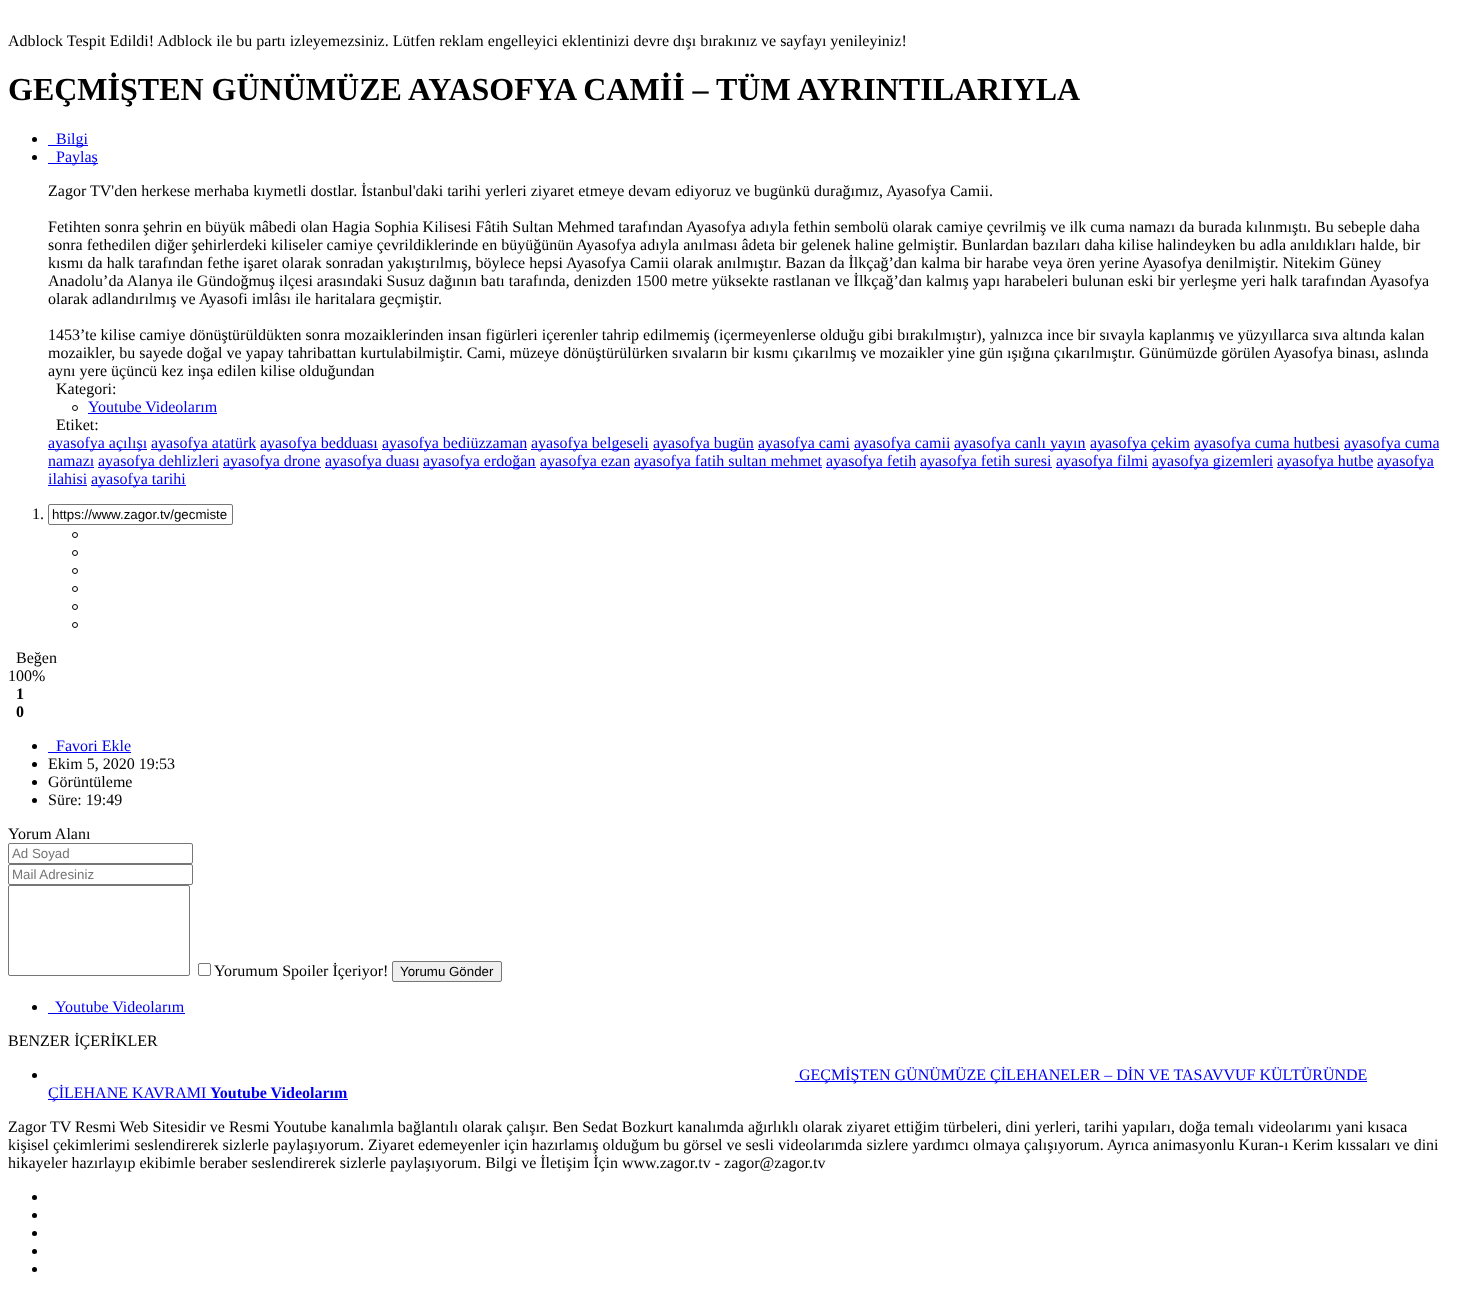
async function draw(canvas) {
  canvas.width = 1457
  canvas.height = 1293
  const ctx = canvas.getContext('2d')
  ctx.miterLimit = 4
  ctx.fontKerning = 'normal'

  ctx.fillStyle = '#fff'
  ctx.fillRect(0, 0, 1457, 1293)
  ctx.font = '16px Liberation Serif'
  ctx.fillStyle = '#000'
  ctx.fillText('Adblock Tespit Edildi! Adblock ile bu partı izleyemezsiniz. Lütfen reklam engelleyici eklentinizi devre dışı bırakınız ve sayfayı yenileyiniz!', 8, 46)
  ctx.font = 'bold 32px Liberation Serif'
  ctx.fillText('GEÇMİŞTEN GÜNÜMÜZE AYASOFYA CAMİİ – TÜM AYRINTILARIYLA', 8, 100)
  ctx.beginPath()
  ctx.arc(34.5, 139.5, 2.5, 0, 2 * Math.PI)
  ctx.fill()
  ctx.fillStyle = '#00e'
  ctx.fillRect(48, 145, 40, 1)
  ctx.font = '16px Liberation Serif'
  ctx.fillText('Bilgi', 56, 144)
  ctx.fillStyle = '#000'
  ctx.beginPath()
  ctx.arc(34.5, 157.5, 2.5, 0, 2 * Math.PI)
  ctx.fill()
  ctx.fillStyle = '#00e'
  ctx.fillRect(48, 163, 50, 1)
  ctx.fillText('Paylaş', 56, 162)
  ctx.fillStyle = '#000'
  ctx.fillText('Zagor TV\'den herkese merhaba kıymetli dostlar. İstanbul\'daki tarihi yerleri ziyaret etmeye devam ediyoruz ve bugünkü durağımız, Ayasofya Camii.', 48, 196)
  ctx.fillText('Fetihten sonra şehrin en büyük mâbedi olan Hagia Sophia Kilisesi Fâtih Sultan Mehmed tarafından Ayasofya adıyla fethin sembolü olarak camiye çevrilmiş ve ilk cuma namazı da burada kılınmıştı. Bu sebeple daha', 48, 232)
  ctx.fillText('sonra fethedilen diğer şehirlerdeki kiliseler camiye çevrildiklerinde en büyüğünün Ayasofya adıyla anılması âdeta bir gelenek haline gelmiştir. Bunlardan bazıları daha kilise halindeyken bu adla anıldıkları halde, bir', 48, 250)
  ctx.fillText('kısmı da halk tarafından fethe işaret olarak sonradan yakıştırılmış, böylece hepsi Ayasofya Camii olarak anılmıştır. Bazan da İlkçağ’dan kalma bir harabe veya ören yerine Ayasofya denilmiştir. Nitekim Güney', 48, 268)
  ctx.fillText('Anadolu’da Alanya ile Gündoğmuş ilçesi arasındaki Susuz dağının batı tarafında, denizden 1500 metre yüksekte rastlanan ve İlkçağ’dan kalmış yapı harabeleri bulunan eski bir yerleşme yeri halk tarafından Ayasofya', 48, 286)
  ctx.fillText('olarak adlandırılmış ve Ayasofi imlâsı ile haritalara geçmiştir.', 48, 304)
  ctx.fillText('1453’te kilise camiye dönüştürüldükten sonra mozaiklerinden insan figürleri içerenler tahrip edilmemiş (içermeyenlerse olduğu gibi bırakılmıştır), yalnızca ince bir sıvayla kaplanmış ve yüzyıllarca sıva altında kalan', 48, 340)
  ctx.fillText('mozaikler, bu sayede doğal ve yapay tahribattan kurtulabilmiştir. Cami, müzeye dönüştürülürken sıvaların bir kısmı çıkarılmış ve mozaikler yine gün ışığına çıkarılmıştır. Günümüzde görülen Ayasofya binası, aslında', 48, 358)
  ctx.fillText('aynı yere üçüncü kez inşa edilen kilise olduğundan', 48, 376)
  ctx.fillText('Kategori:', 56, 394)
  ctx.beginPath()
  ctx.arc(75, 408, 2.5, 0, 2 * Math.PI)
  ctx.strokeStyle = '#000'
  ctx.stroke()
  ctx.fillStyle = '#00e'
  ctx.fillText('Youtube Videolarım', 88, 412)
  ctx.fillRect(88, 413, 129, 1)
  ctx.fillStyle = '#000'
  ctx.fillText('Etiket:', 56, 430)
  ctx.fillStyle = '#00e'
  ctx.fillRect(48, 449, 99, 1)
  ctx.fillText('ayasofya açılışı', 48, 448)
  ctx.fillRect(151, 449, 105, 1)
  ctx.fillText('ayasofya atatürk', 151, 448)
  ctx.fillRect(260, 449, 118, 1)
  ctx.fillText('ayasofya bedduası', 260, 448)
  ctx.fillRect(382, 449, 145, 1)
  ctx.fillText('ayasofya bediüzzaman', 382, 448)
  ctx.fillRect(531, 449, 118, 1)
  ctx.fillText('ayasofya belgeseli', 531, 448)
  ctx.fillRect(653, 449, 101, 1)
  ctx.fillText('ayasofya bugün', 653, 448)
  ctx.fillRect(758, 449, 92, 1)
  ctx.fillText('ayasofya cami', 758, 448)
  ctx.fillRect(854, 449, 96, 1)
  ctx.fillText('ayasofya camii', 854, 448)
  ctx.fillRect(954, 449, 132, 1)
  ctx.fillText('ayasofya canlı yayın', 954, 448)
  ctx.fillRect(1090, 449, 100, 1)
  ctx.fillText('ayasofya çekim', 1090, 448)
  ctx.fillRect(1194, 449, 146, 1)
  ctx.fillText('ayasofya cuma hutbesi', 1194, 448)
  ctx.fillRect(1344, 449, 95, 1)
  ctx.fillText('ayasofya cuma', 1344, 448)
  ctx.fillText('namazı', 48, 466)
  ctx.fillRect(48, 467, 46, 1)
  ctx.fillRect(98, 467, 121, 1)
  ctx.fillText('ayasofya dehlizleri', 98, 466)
  ctx.fillRect(223, 467, 98, 1)
  ctx.fillText('ayasofya drone', 223, 466)
  ctx.fillRect(325, 467, 94, 1)
  ctx.fillText('ayasofya duası', 325, 466)
  ctx.fillRect(423, 467, 113, 1)
  ctx.fillText('ayasofya erdoğan', 423, 466)
  ctx.fillRect(540, 467, 90, 1)
  ctx.fillText('ayasofya ezan', 540, 466)
  ctx.fillRect(634, 467, 188, 1)
  ctx.fillText('ayasofya fatih sultan mehmet', 634, 466)
  ctx.fillRect(826, 467, 90, 1)
  ctx.fillText('ayasofya fetih', 826, 466)
  ctx.fillRect(920, 467, 132, 1)
  ctx.fillText('ayasofya fetih suresi', 920, 466)
  ctx.fillRect(1056, 467, 92, 1)
  ctx.fillText('ayasofya filmi', 1056, 466)
  ctx.fillRect(1152, 467, 121, 1)
  ctx.fillText('ayasofya gizemleri', 1152, 466)
  ctx.fillRect(1277, 467, 96, 1)
  ctx.fillText('ayasofya hutbe', 1277, 466)
  ctx.fillRect(1377, 467, 57, 1)
  ctx.fillText('ayasofya', 1377, 466)
  ctx.fillText('ilahisi', 48, 484)
  ctx.fillRect(48, 485, 39, 1)
  ctx.fillRect(91, 485, 95, 1)
  ctx.fillText('ayasofya tarihi', 91, 484)
  ctx.fillStyle = '#000'
  ctx.fillText('1.', 32, 519)
  ctx.beginPath()
  ctx.roundRect(48.5, 504.5, 184, 20, 1.5)
  ctx.strokeStyle = '#767676'
  ctx.stroke()
  ctx.font = '13.3px Liberation Sans'
  ctx.fillText('https://www.zagor.tv/gecmiste', 52, 519)
  ctx.beginPath()
  ctx.arc(75, 535, 2.5, 0, 2 * Math.PI)
  ctx.strokeStyle = '#000'
  ctx.stroke()
  ctx.beginPath()
  ctx.arc(75, 553, 2.5, 0, 2 * Math.PI)
  ctx.stroke()
  ctx.beginPath()
  ctx.arc(75, 571, 2.5, 0, 2 * Math.PI)
  ctx.stroke()
  ctx.beginPath()
  ctx.arc(75, 589, 2.5, 0, 2 * Math.PI)
  ctx.stroke()
  ctx.beginPath()
  ctx.arc(75, 607, 2.5, 0, 2 * Math.PI)
  ctx.stroke()
  ctx.beginPath()
  ctx.arc(75, 625, 2.5, 0, 2 * Math.PI)
  ctx.stroke()
  ctx.font = '16px Liberation Serif'
  ctx.fillText('Beğen', 16, 663)
  ctx.fillText('100%', 8, 681)
  ctx.font = 'bold 16px Liberation Serif'
  ctx.fillText('1', 16, 699)
  ctx.fillText('0', 16, 717)
  ctx.beginPath()
  ctx.arc(34.5, 746.5, 2.5, 0, 2 * Math.PI)
  ctx.fill()
  ctx.font = '16px Liberation Serif'
  ctx.fillStyle = '#00e'
  ctx.fillText('Favori Ekle', 56, 751)
  ctx.fillRect(48, 752, 83, 1)
  ctx.fillStyle = '#000'
  ctx.beginPath()
  ctx.arc(34.5, 764.5, 2.5, 0, 2 * Math.PI)
  ctx.fill()
  ctx.fillText('Ekim 5, 2020 19:53', 48, 769)
  ctx.beginPath()
  ctx.arc(34.5, 782.5, 2.5, 0, 2 * Math.PI)
  ctx.fill()
  ctx.fillText('Görüntüleme', 48, 787)
  ctx.beginPath()
  ctx.arc(34.5, 800.5, 2.5, 0, 2 * Math.PI)
  ctx.fill()
  ctx.fillText('Süre: 19:49', 48, 805)
  ctx.fillText('Yorum Alanı', 8, 839)
  ctx.beginPath()
  ctx.roundRect(8.5, 843.5, 184, 20, 1.5)
  ctx.strokeStyle = '#767676'
  ctx.stroke()
  ctx.font = '13.3px Liberation Sans'
  ctx.fillStyle = '#757575'
  ctx.fillText('Ad Soyad', 12, 858)
  ctx.beginPath()
  ctx.roundRect(8.5, 864.5, 184, 20, 1.5)
  ctx.stroke()
  ctx.fillText('Mail Adresiniz', 12, 879)
  ctx.beginPath()
  ctx.roundRect(8.5, 885.5, 181, 90, 1.5)
  ctx.stroke()
  ctx.beginPath()
  ctx.roundRect(198.5, 963.5, 12, 12, 1.5)
  ctx.stroke()
  ctx.font = '16px Liberation Serif'
  ctx.fillStyle = '#000'
  ctx.fillText('Yorumum Spoiler İçeriyor!', 214, 976)
  ctx.fillStyle = '#efefef'
  ctx.beginPath()
  ctx.roundRect(392.5, 961.5, 109, 20, 1.5)
  ctx.fill()
  ctx.stroke()
  ctx.font = '13.3px Liberation Sans'
  ctx.fillStyle = '#000'
  ctx.fillText('Yorumu Gönder', 400, 976)
  ctx.beginPath()
  ctx.arc(34.5, 1007.5, 2.5, 0, 2 * Math.PI)
  ctx.fill()
  ctx.font = '16px Liberation Serif'
  ctx.fillStyle = '#00e'
  ctx.fillText('Youtube Videolarım', 55, 1012)
  ctx.fillRect(48, 1013, 137, 1)
  ctx.fillStyle = '#000'
  ctx.fillText('BENZER İÇERİKLER', 8, 1046)
  ctx.beginPath()
  ctx.arc(34.5, 1075.5, 2.5, 0, 2 * Math.PI)
  ctx.fill()
  ctx.fillStyle = '#00e'
  ctx.fillRect(795, 1081, 572, 1)
  ctx.fillText('GEÇMİŞTEN GÜNÜMÜZE ÇİLEHANELER – DİN VE TASAVVUF KÜLTÜRÜNDE', 799, 1080)
  ctx.fillRect(48, 1099, 300, 1)
  ctx.fillText('ÇİLEHANE KAVRAMI', 48, 1098)
  ctx.font = 'bold 16px Liberation Serif'
  ctx.fillText('Youtube Videolarım', 210, 1098)
  ctx.font = '16px Liberation Serif'
  ctx.fillStyle = '#000'
  ctx.fillText('Zagor TV Resmi Web Sitesidir ve Resmi Youtube kanalımla bağlantılı olarak çalışır. Ben Sedat Bozkurt kanalımda ağırlıklı olarak ziyaret ettiğim türbeleri, dini yerleri, tarihi yapıları, doğa temalı videolarımı yani kısaca', 8, 1132)
  ctx.fillText('kişisel çekimlerimi seslendirerek sizlerle paylaşıyorum. Ziyaret edemeyenler için hazırlamış olduğum bu görsel ve sesli videolarımda sizlere yardımcı olmaya çalışıyorum. Ayrıca animasyonlu Kuran-ı Kerim kıssaları ve dini', 8, 1150)
  ctx.fillText('hikayeler hazırlayıp ekibimle beraber seslendirerek sizlerle paylaşıyorum. Bilgi ve İletişim İçin www.zagor.tv - zagor@zagor.tv', 8, 1168)
  ctx.beginPath()
  ctx.arc(34.5, 1197.5, 2.5, 0, 2 * Math.PI)
  ctx.fill()
  ctx.beginPath()
  ctx.arc(34.5, 1215.5, 2.5, 0, 2 * Math.PI)
  ctx.fill()
  ctx.beginPath()
  ctx.arc(34.5, 1233.5, 2.5, 0, 2 * Math.PI)
  ctx.fill()
  ctx.beginPath()
  ctx.arc(34.5, 1251.5, 2.5, 0, 2 * Math.PI)
  ctx.fill()
  ctx.beginPath()
  ctx.arc(34.5, 1269.5, 2.5, 0, 2 * Math.PI)
  ctx.fill()
}

draw(document.querySelector('canvas'))
